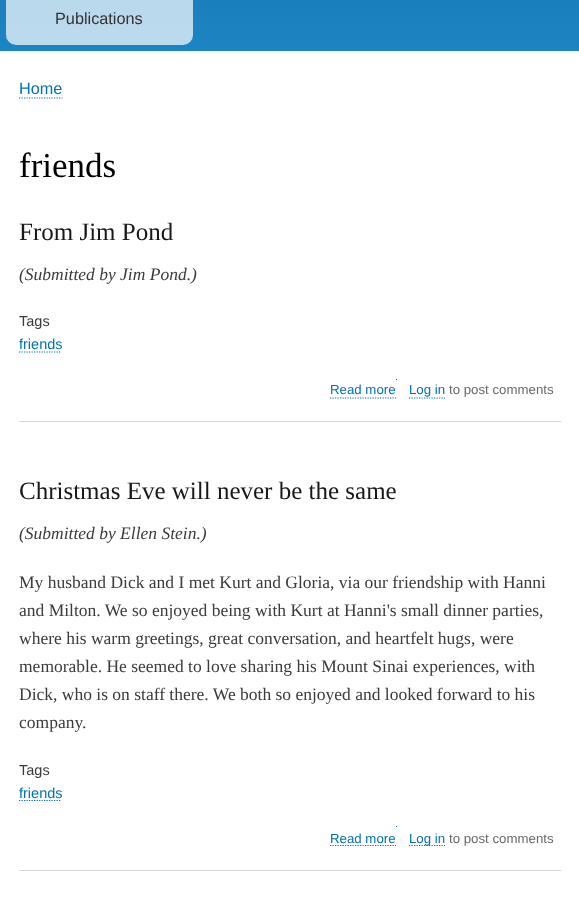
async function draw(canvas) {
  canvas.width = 579
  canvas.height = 912
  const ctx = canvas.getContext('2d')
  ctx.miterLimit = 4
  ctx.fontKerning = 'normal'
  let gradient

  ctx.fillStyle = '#fff'
  ctx.fillRect(0, 0, 579, 912)
  gradient = ctx.createLinearGradient(290, -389, 290, 51)
  gradient.addColorStop(0, '#055a8e')
  gradient.addColorStop(1, '#1d84c3')
  ctx.fillStyle = gradient
  ctx.fillRect(0, 0, 579, 51)
  ctx.fillStyle = '#ffffffb3'
  ctx.beginPath()
  ctx.roundRect(6, -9, 187, 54, 10)
  ctx.fill()
  ctx.font = '16.25px Liberation Sans'
  ctx.fillStyle = '#333'
  ctx.fillText('Publications', 55, 24)
  ctx.fillStyle = '#0071b3'
  ctx.fillText('Home', 19, 94)
  ctx.beginPath()
  ctx.moveTo(19, 98)
  ctx.lineTo(62.5, 98)
  ctx.strokeStyle = '#0071b3'
  ctx.lineWidth = 1.2
  ctx.setLineDash([1.25, 1.25])
  ctx.stroke()
  ctx.font = '35px Liberation Serif'
  ctx.fillStyle = '#000'
  ctx.fillText('friends', 19, 177)
  ctx.fillStyle = '#d3d7d9'
  ctx.fillRect(19, 421, 542, 1)
  ctx.font = '25px Liberation Serif'
  ctx.fillStyle = '#181818'
  ctx.fillText('From Jim Pond', 19, 240)
  ctx.font = 'italic 17.5px Liberation Serif'
  ctx.fillStyle = '#3b3b3b'
  ctx.fillText('(Submitted by Jim Pond.)', 19, 280)
  ctx.font = '14.5px Liberation Sans'
  ctx.fillText('Tags', 19, 326)
  ctx.fillStyle = '#0071b3'
  ctx.fillText('friends', 19, 349)
  ctx.beginPath()
  ctx.moveTo(19, 352)
  ctx.lineTo(61, 352)
  ctx.stroke()
  ctx.font = '13.25px Liberation Sans'
  ctx.fillText('Read more', 330, 394)
  ctx.beginPath()
  ctx.moveTo(330, 398)
  ctx.lineTo(396, 398)
  ctx.stroke()
  ctx.fillRect(396, 379, 1, 1)
  ctx.fillText('Log in', 409, 394)
  ctx.beginPath()
  ctx.moveTo(409, 398)
  ctx.lineTo(445, 398)
  ctx.stroke()
  ctx.fillStyle = '#68696b'
  ctx.fillText('to post comments', 449, 394)
  ctx.fillStyle = '#d3d7d9'
  ctx.fillRect(19, 870, 542, 1)
  ctx.font = '25px Liberation Serif'
  ctx.fillStyle = '#181818'
  ctx.fillText('Christmas Eve will never be the same', 19, 499)
  ctx.font = 'italic 17.5px Liberation Serif'
  ctx.fillStyle = '#3b3b3b'
  ctx.fillText('(Submitted by Ellen Stein.)', 19, 539)
  ctx.font = '17.5px Liberation Serif'
  ctx.fillText('My husband Dick and I met Kurt and Gloria, via our friendship with Hanni', 19, 588)
  ctx.fillText('and Milton. We so enjoyed being with Kurt at Hanni\'s small dinner parties,', 19, 616)
  ctx.fillText('where his warm greetings, great conversation, and heartfelt hugs, were', 19, 644)
  ctx.fillText('memorable. He seemed to love sharing his Mount Sinai experiences, with', 19, 672)
  ctx.fillText('Dick, who is on staff there. We both so enjoyed and looked forward to his', 19, 700)
  ctx.fillText('company.', 19, 728)
  ctx.font = '14.5px Liberation Sans'
  ctx.fillText('Tags', 19, 775)
  ctx.fillStyle = '#0071b3'
  ctx.fillText('friends', 19, 798)
  ctx.beginPath()
  ctx.moveTo(19, 800.5)
  ctx.lineTo(61, 800.5)
  ctx.stroke()
  ctx.font = '13.25px Liberation Sans'
  ctx.fillText('Read more', 330, 843)
  ctx.beginPath()
  ctx.moveTo(330, 845.5)
  ctx.lineTo(396, 845.5)
  ctx.stroke()
  ctx.fillRect(396, 826, 1, 1)
  ctx.beginPath()
  ctx.moveTo(409, 845.5)
  ctx.lineTo(445, 845.5)
  ctx.stroke()
  ctx.fillText('Log in', 409, 843)
  ctx.fillStyle = '#68696b'
  ctx.fillText('to post comments', 449, 843)
}

draw(document.querySelector('canvas'))
